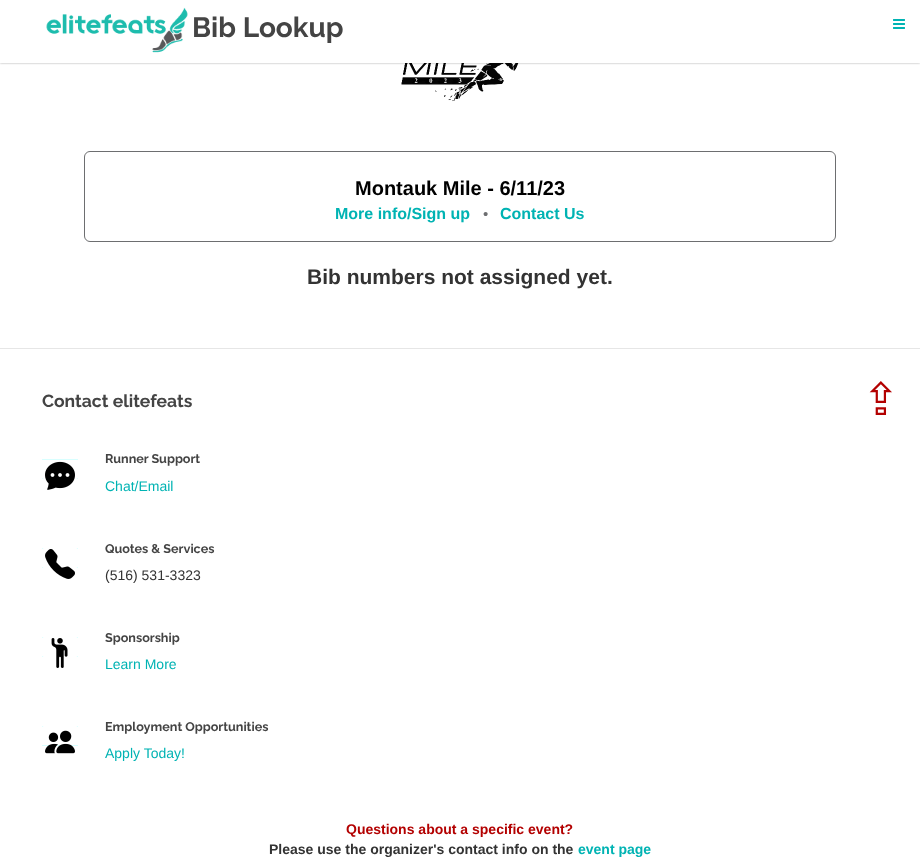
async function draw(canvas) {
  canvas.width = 920
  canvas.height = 864
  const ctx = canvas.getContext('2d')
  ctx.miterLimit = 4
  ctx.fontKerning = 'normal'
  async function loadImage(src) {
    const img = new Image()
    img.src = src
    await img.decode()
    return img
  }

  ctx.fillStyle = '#fff'
  ctx.fillRect(0, 0, 920, 864)
  ctx.drawImage(await loadImage('image2.png'), 401, 63, 120, 39)
  ctx.fillStyle = '#00000059'
  ctx.filter = 'blur(1px)'
  ctx.beginPath()
  ctx.rect(0, 0, 920, 63)
  ctx.fill()
  ctx.filter = 'none'
  ctx.fillStyle = '#fff'
  ctx.fillRect(0, 0, 920, 63)
  ctx.drawImage(await loadImage('image0.png'), 46, 7, 142, 46)
  ctx.font = 'bold 28px Raleway'
  ctx.fillStyle = '#444'
  ctx.fillText('Bib Lookup', 192, 37)
  ctx.drawImage(await loadImage('image1.png'), 893, 19, 12, 10)
  ctx.beginPath()
  ctx.roundRect(84.5, 151.5, 751, 90, 5.5)
  ctx.strokeStyle = '#6d6e70'
  ctx.stroke()
  ctx.font = 'bold 20px Liberation Sans'
  ctx.fillStyle = '#000'
  ctx.fillText('Montauk Mile - 6/11/23', 355, 195)
  ctx.font = 'bold 16px Liberation Sans'
  ctx.fillStyle = '#00b3b3'
  ctx.fillText('More info/Sign up', 335, 219)
  ctx.font = '15px Liberation Sans'
  ctx.fillStyle = '#6d6e70'
  ctx.fillText('•', 483, 219)
  ctx.font = 'bold 16px Liberation Sans'
  ctx.fillStyle = '#00b3b3'
  ctx.fillText('Contact Us', 500, 219)
  ctx.font = 'bold 21px Liberation Sans'
  ctx.fillStyle = '#333'
  ctx.fillText('Bib numbers not assigned yet.', 307, 284)
  ctx.fillStyle = '#e6e6e6'
  ctx.fillRect(0, 348, 920, 1)
  ctx.font = 'bold 17.5px Raleway'
  ctx.fillStyle = '#444'
  ctx.fillText('Contact elitefeats', 42, 407)
  ctx.fillStyle = '#d8ffff'
  ctx.fillRect(42, 478, 36, 1)
  ctx.fillRect(42, 459, 36, 1)
  ctx.fillStyle = '#fff'
  ctx.beginPath()
  ctx.moveTo(42, 478)
  ctx.lineTo(78, 478)
  ctx.lineTo(60, 489)
  ctx.closePath()
  ctx.fill()
  ctx.drawImage(await loadImage('image3.png'), 45, 461, 30, 29)
  ctx.font = 'bold 12.6px Raleway'
  ctx.fillStyle = '#444'
  ctx.fillText('Runner Support', 105, 463)
  ctx.font = '14px Liberation Sans'
  ctx.fillStyle = '#00b3b3'
  ctx.fillText('Chat/Email', 105, 491)
  ctx.fillStyle = '#d8ffff'
  ctx.fillRect(42, 567, 36, 1)
  ctx.fillRect(42, 548, 36, 1)
  ctx.fillStyle = '#fff'
  ctx.beginPath()
  ctx.moveTo(78, 549)
  ctx.lineTo(42, 549)
  ctx.lineTo(60, 538)
  ctx.closePath()
  ctx.moveTo(42, 567)
  ctx.lineTo(78, 567)
  ctx.lineTo(60, 578)
  ctx.closePath()
  ctx.fill()
  ctx.drawImage(await loadImage('image4.png'), 45, 549, 30, 30)
  ctx.font = 'bold 12.6px Raleway'
  ctx.fillStyle = '#444'
  ctx.fillText('Quotes & Services', 105, 553)
  ctx.font = '14px Liberation Sans'
  ctx.fillStyle = '#333'
  ctx.fillText('(516) 531-3323', 105, 580)
  ctx.fillStyle = '#d8ffff'
  ctx.fillRect(42, 656, 36, 1)
  ctx.fillRect(42, 637, 36, 1)
  ctx.fillStyle = '#fff'
  ctx.beginPath()
  ctx.moveTo(78, 638)
  ctx.lineTo(42, 638)
  ctx.lineTo(60, 627)
  ctx.closePath()
  ctx.moveTo(42, 656)
  ctx.lineTo(78, 656)
  ctx.lineTo(60, 667)
  ctx.closePath()
  ctx.fill()
  ctx.drawImage(await loadImage('image5.png'), 51, 638, 17, 30)
  ctx.font = 'bold 12.6px Raleway'
  ctx.fillStyle = '#444'
  ctx.fillText('Sponsorship', 105, 642)
  ctx.font = '14px Liberation Sans'
  ctx.fillStyle = '#00b3b3'
  ctx.fillText('Learn More', 105, 669)
  ctx.fillStyle = '#d8ffff'
  ctx.fillRect(42, 745, 36, 1)
  ctx.fillRect(42, 726, 36, 1)
  ctx.fillStyle = '#fff'
  ctx.beginPath()
  ctx.moveTo(78, 727)
  ctx.lineTo(42, 727)
  ctx.lineTo(60, 716)
  ctx.closePath()
  ctx.fill()
  ctx.drawImage(await loadImage('image6.png'), 45, 730, 30, 24)
  ctx.font = 'bold 12.6px Raleway'
  ctx.fillStyle = '#444'
  ctx.fillText('Employment Opportunities', 105, 731)
  ctx.font = '14px Liberation Sans'
  ctx.fillStyle = '#00b3b3'
  ctx.fillText('Apply Today!', 105, 758)
  ctx.font = 'bold 14px Liberation Sans'
  ctx.fillStyle = '#b30000'
  ctx.fillText('Questions about a specific event?', 346, 834)
  ctx.fillStyle = '#333'
  ctx.fillText('Please use the organizer\'s contact info on the', 269, 854)
  ctx.fillStyle = '#00b3b3'
  ctx.fillText('event page', 578, 854)
  ctx.font = '45px DejaVu Sans'
  ctx.fillStyle = '#b30000'
  ctx.fillText('⇪', 862, 415)
}

draw(document.querySelector('canvas'))
